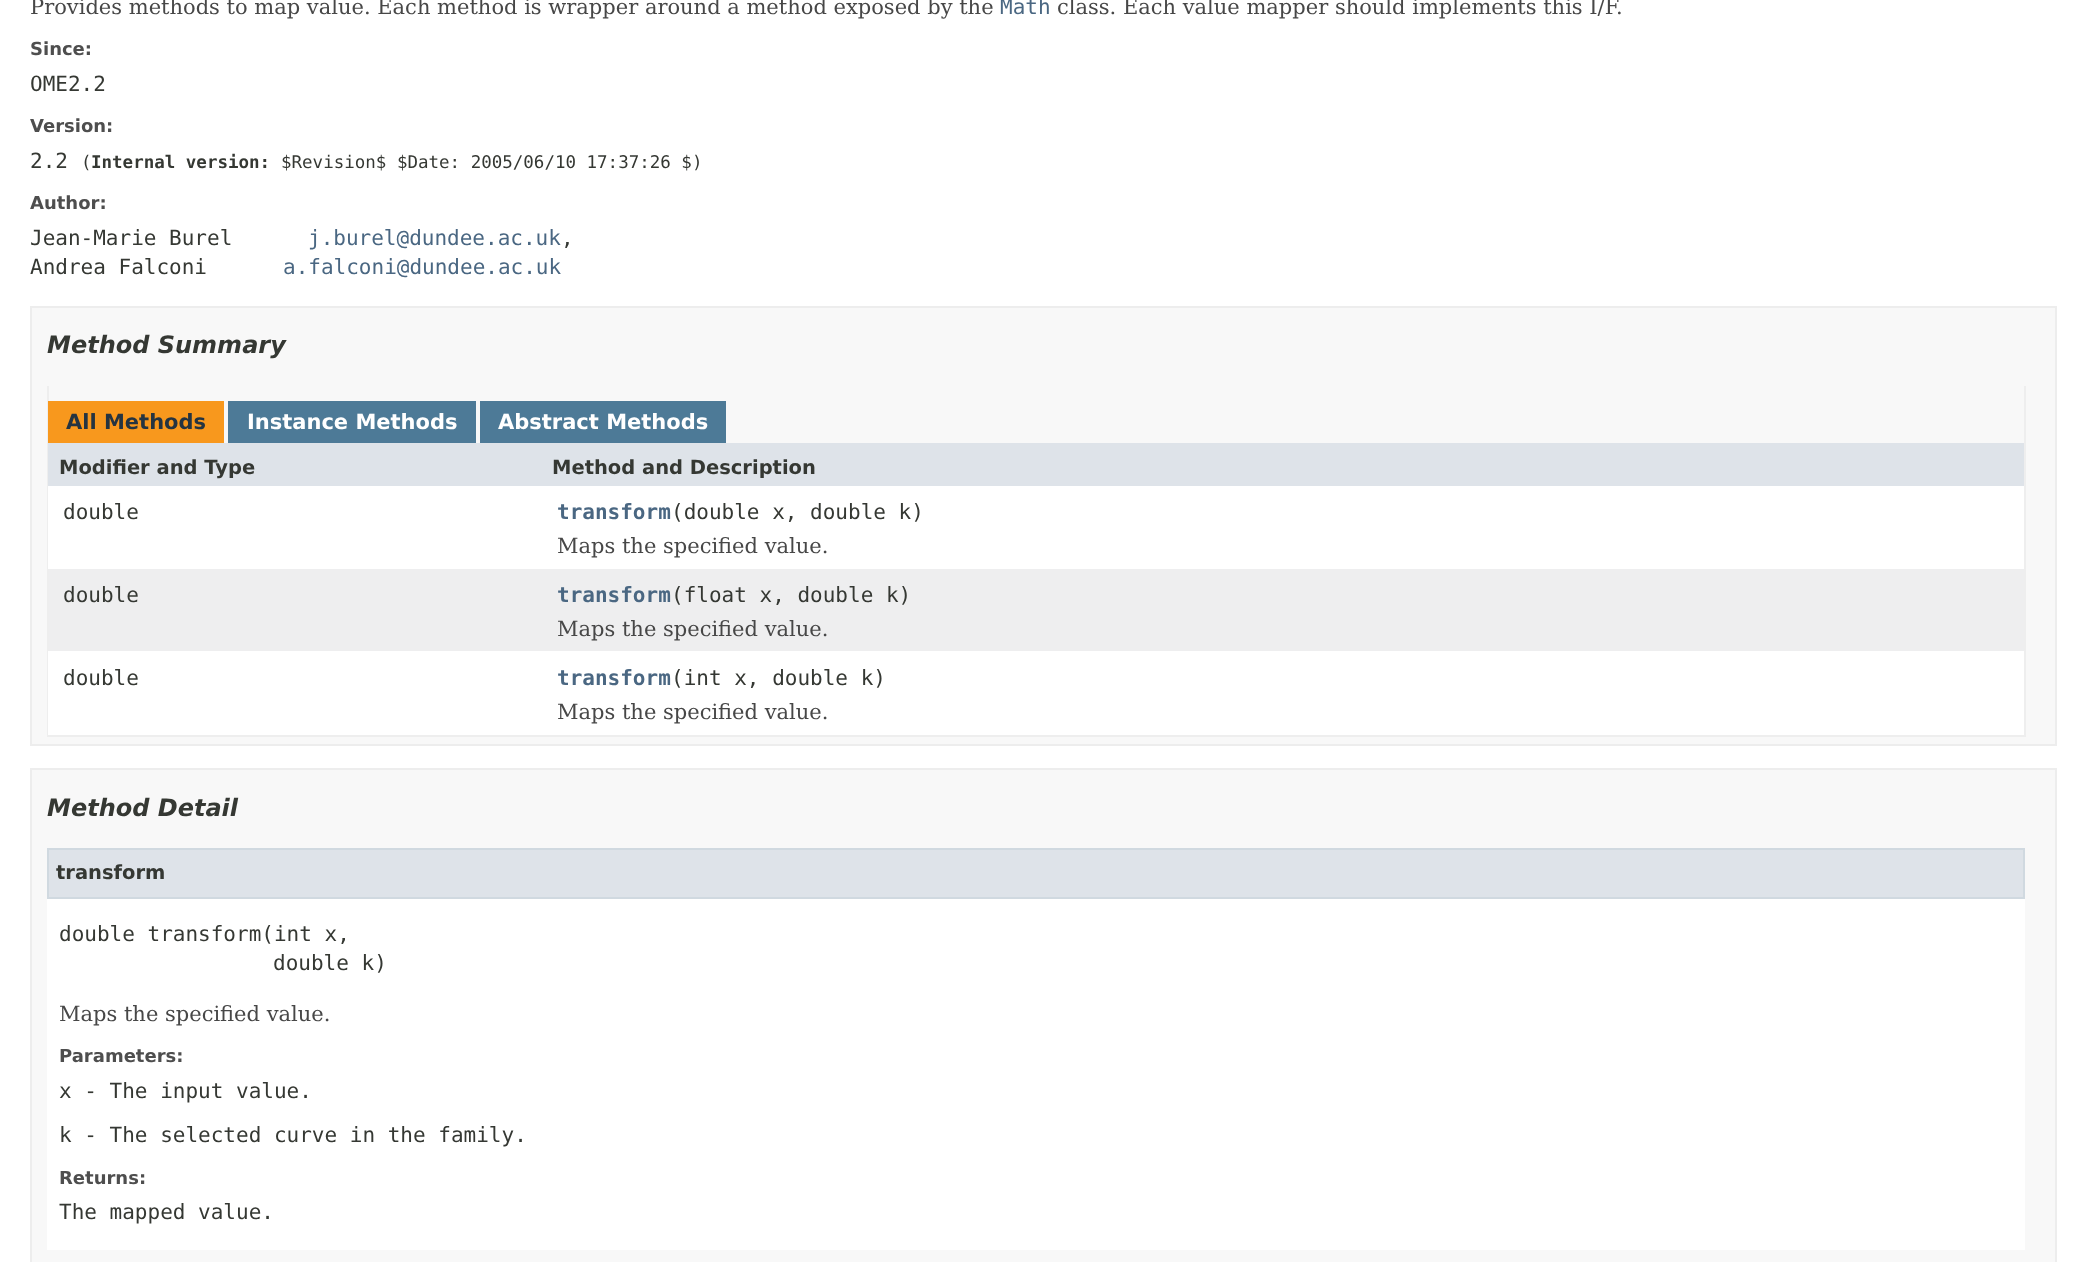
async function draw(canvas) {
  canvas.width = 2086
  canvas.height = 1262
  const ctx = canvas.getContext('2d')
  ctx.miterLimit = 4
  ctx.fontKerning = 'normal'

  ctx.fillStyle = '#fff'
  ctx.fillRect(0, 0, 2086, 1262)
  ctx.font = '21px DejaVu Serif'
  ctx.fillStyle = '#474747'
  ctx.fillText('Provides methods to map value. Each method is wrapper around a method exposed by the', 30, 14)
  ctx.font = '21px DejaVu Sans Mono'
  ctx.fillStyle = '#4a6782'
  ctx.fillText('Math', 1000, 14)
  ctx.font = '21px DejaVu Serif'
  ctx.fillStyle = '#474747'
  ctx.fillText('class. Each value mapper should implements this I/F.', 1057, 14)
  ctx.font = 'bold 18px DejaVu Sans'
  ctx.fillStyle = '#4e4e4e'
  ctx.fillText('Since:', 30, 55)
  ctx.font = '21px DejaVu Sans Mono'
  ctx.fillStyle = '#353833'
  ctx.fillText('OME2.2', 30, 91)
  ctx.font = 'bold 18px DejaVu Sans'
  ctx.fillStyle = '#4e4e4e'
  ctx.fillText('Version:', 30, 132)
  ctx.font = '21px DejaVu Sans Mono'
  ctx.fillStyle = '#353833'
  ctx.fillText('2.2', 30, 168)
  ctx.font = '17.5px DejaVu Sans Mono'
  ctx.fillText('(', 81, 168)
  ctx.font = 'bold 17.5px DejaVu Sans Mono'
  ctx.fillText('Internal version:', 91, 168)
  ctx.font = '17.5px DejaVu Sans Mono'
  ctx.fillText('$Revision$ $Date: 2005/06/10 17:37:26 $)', 281, 168)
  ctx.font = 'bold 18px DejaVu Sans'
  ctx.fillStyle = '#4e4e4e'
  ctx.fillText('Author:', 30, 209)
  ctx.font = '21px DejaVu Sans Mono'
  ctx.fillStyle = '#353833'
  ctx.fillText('Jean-Marie Burel', 30, 245)
  ctx.fillStyle = '#4a6782'
  ctx.fillText('j.burel@dundee.ac.uk', 308, 245)
  ctx.fillStyle = '#353833'
  ctx.fillText(',', 561, 245)
  ctx.fillText('Andrea Falconi', 30, 274)
  ctx.fillStyle = '#4a6782'
  ctx.fillText('a.falconi@dundee.ac.uk', 283, 274)
  ctx.fillStyle = '#f8f8f8'
  ctx.beginPath()
  ctx.rect(31, 307, 2025, 438)
  ctx.fill()
  ctx.strokeStyle = '#ededed'
  ctx.lineWidth = 2
  ctx.stroke()
  ctx.font = 'italic bold 24px DejaVu Sans'
  ctx.fillStyle = '#353833'
  ctx.fillText('Method Summary', 47, 353)
  ctx.fillStyle = '#eee'
  ctx.fillRect(2024, 386, 2, 351)
  ctx.fillRect(47, 735, 1978, 2)
  ctx.fillRect(47, 386, 2, 351)
  ctx.fillStyle = '#f8981d'
  ctx.fillRect(48, 401, 176, 42)
  ctx.font = 'bold 21px DejaVu Sans'
  ctx.fillStyle = '#253441'
  ctx.fillText('All Methods', 66, 429)
  ctx.fillStyle = '#4d7a97'
  ctx.fillRect(228, 401, 248, 42)
  ctx.fillStyle = '#fff'
  ctx.fillText('Instance Methods', 247, 429)
  ctx.fillStyle = '#4d7a97'
  ctx.fillRect(480, 401, 246, 42)
  ctx.fillStyle = '#fff'
  ctx.fillText('Abstract Methods', 498, 429)
  ctx.fillStyle = '#dee3e9'
  ctx.fillRect(48, 443, 1976, 43)
  ctx.font = 'bold 19.5px DejaVu Sans'
  ctx.fillStyle = '#353833'
  ctx.fillText('Modifier and Type', 59, 474)
  ctx.fillText('Method and Description', 552, 474)
  ctx.fillStyle = '#fff'
  ctx.fillRect(48, 486, 1976, 83)
  ctx.font = '21px DejaVu Sans Mono'
  ctx.fillStyle = '#353833'
  ctx.fillText('double', 63, 519)
  ctx.font = 'bold 21px DejaVu Sans Mono'
  ctx.fillStyle = '#4a6782'
  ctx.fillText('transform', 557, 519)
  ctx.font = '21px DejaVu Sans Mono'
  ctx.fillStyle = '#353833'
  ctx.fillText('(double x, double k)', 671, 519)
  ctx.font = '21px DejaVu Serif'
  ctx.fillStyle = '#474747'
  ctx.fillText('Maps the specified value.', 557, 553)
  ctx.fillStyle = '#eeeeef'
  ctx.fillRect(49, 569, 1975, 82)
  ctx.font = '21px DejaVu Sans Mono'
  ctx.fillStyle = '#353833'
  ctx.fillText('double', 63, 602)
  ctx.font = 'bold 21px DejaVu Sans Mono'
  ctx.fillStyle = '#4a6782'
  ctx.fillText('transform', 557, 602)
  ctx.font = '21px DejaVu Sans Mono'
  ctx.fillStyle = '#353833'
  ctx.fillText('(float x, double k)', 671, 602)
  ctx.font = '21px DejaVu Serif'
  ctx.fillStyle = '#474747'
  ctx.fillText('Maps the specified value.', 557, 636)
  ctx.fillStyle = '#fff'
  ctx.fillRect(48, 651, 1976, 84)
  ctx.font = '21px DejaVu Sans Mono'
  ctx.fillStyle = '#353833'
  ctx.fillText('double', 63, 685)
  ctx.font = 'bold 21px DejaVu Sans Mono'
  ctx.fillStyle = '#4a6782'
  ctx.fillText('transform', 557, 685)
  ctx.font = '21px DejaVu Sans Mono'
  ctx.fillStyle = '#353833'
  ctx.fillText('(int x, double k)', 671, 685)
  ctx.font = '21px DejaVu Serif'
  ctx.fillStyle = '#474747'
  ctx.fillText('Maps the specified value.', 557, 719)
  ctx.fillStyle = '#f8f8f8'
  ctx.beginPath()
  ctx.rect(31, 769, 2025, 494)
  ctx.fill()
  ctx.stroke()
  ctx.font = 'italic bold 24px DejaVu Sans'
  ctx.fillStyle = '#353833'
  ctx.fillText('Method Detail', 47, 816)
  ctx.fillStyle = '#fff'
  ctx.fillRect(47, 899, 1978, 351)
  ctx.fillStyle = '#dee3e9'
  ctx.beginPath()
  ctx.rect(48, 849, 1976, 49)
  ctx.fill()
  ctx.strokeStyle = '#d0d9e0'
  ctx.stroke()
  ctx.font = 'bold 19.5px DejaVu Sans'
  ctx.fillStyle = '#353833'
  ctx.fillText('transform', 56, 879)
  ctx.font = '21px DejaVu Sans Mono'
  ctx.fillText('double transform(int x,', 59, 941)
  ctx.fillText('double k)', 273, 970)
  ctx.font = '21px DejaVu Serif'
  ctx.fillStyle = '#474747'
  ctx.fillText('Maps the specified value.', 59, 1021)
  ctx.font = 'bold 18px DejaVu Sans'
  ctx.fillStyle = '#4e4e4e'
  ctx.fillText('Parameters:', 59, 1062)
  ctx.font = '21px DejaVu Sans Mono'
  ctx.fillStyle = '#353833'
  ctx.fillText('x - The input value.', 59, 1098)
  ctx.fillText('k - The selected curve in the family.', 59, 1142)
  ctx.font = 'bold 18px DejaVu Sans'
  ctx.fillStyle = '#4e4e4e'
  ctx.fillText('Returns:', 59, 1184)
  ctx.font = '21px DejaVu Sans Mono'
  ctx.fillStyle = '#353833'
  ctx.fillText('The mapped value.', 59, 1219)
}

draw(document.querySelector('canvas'))
